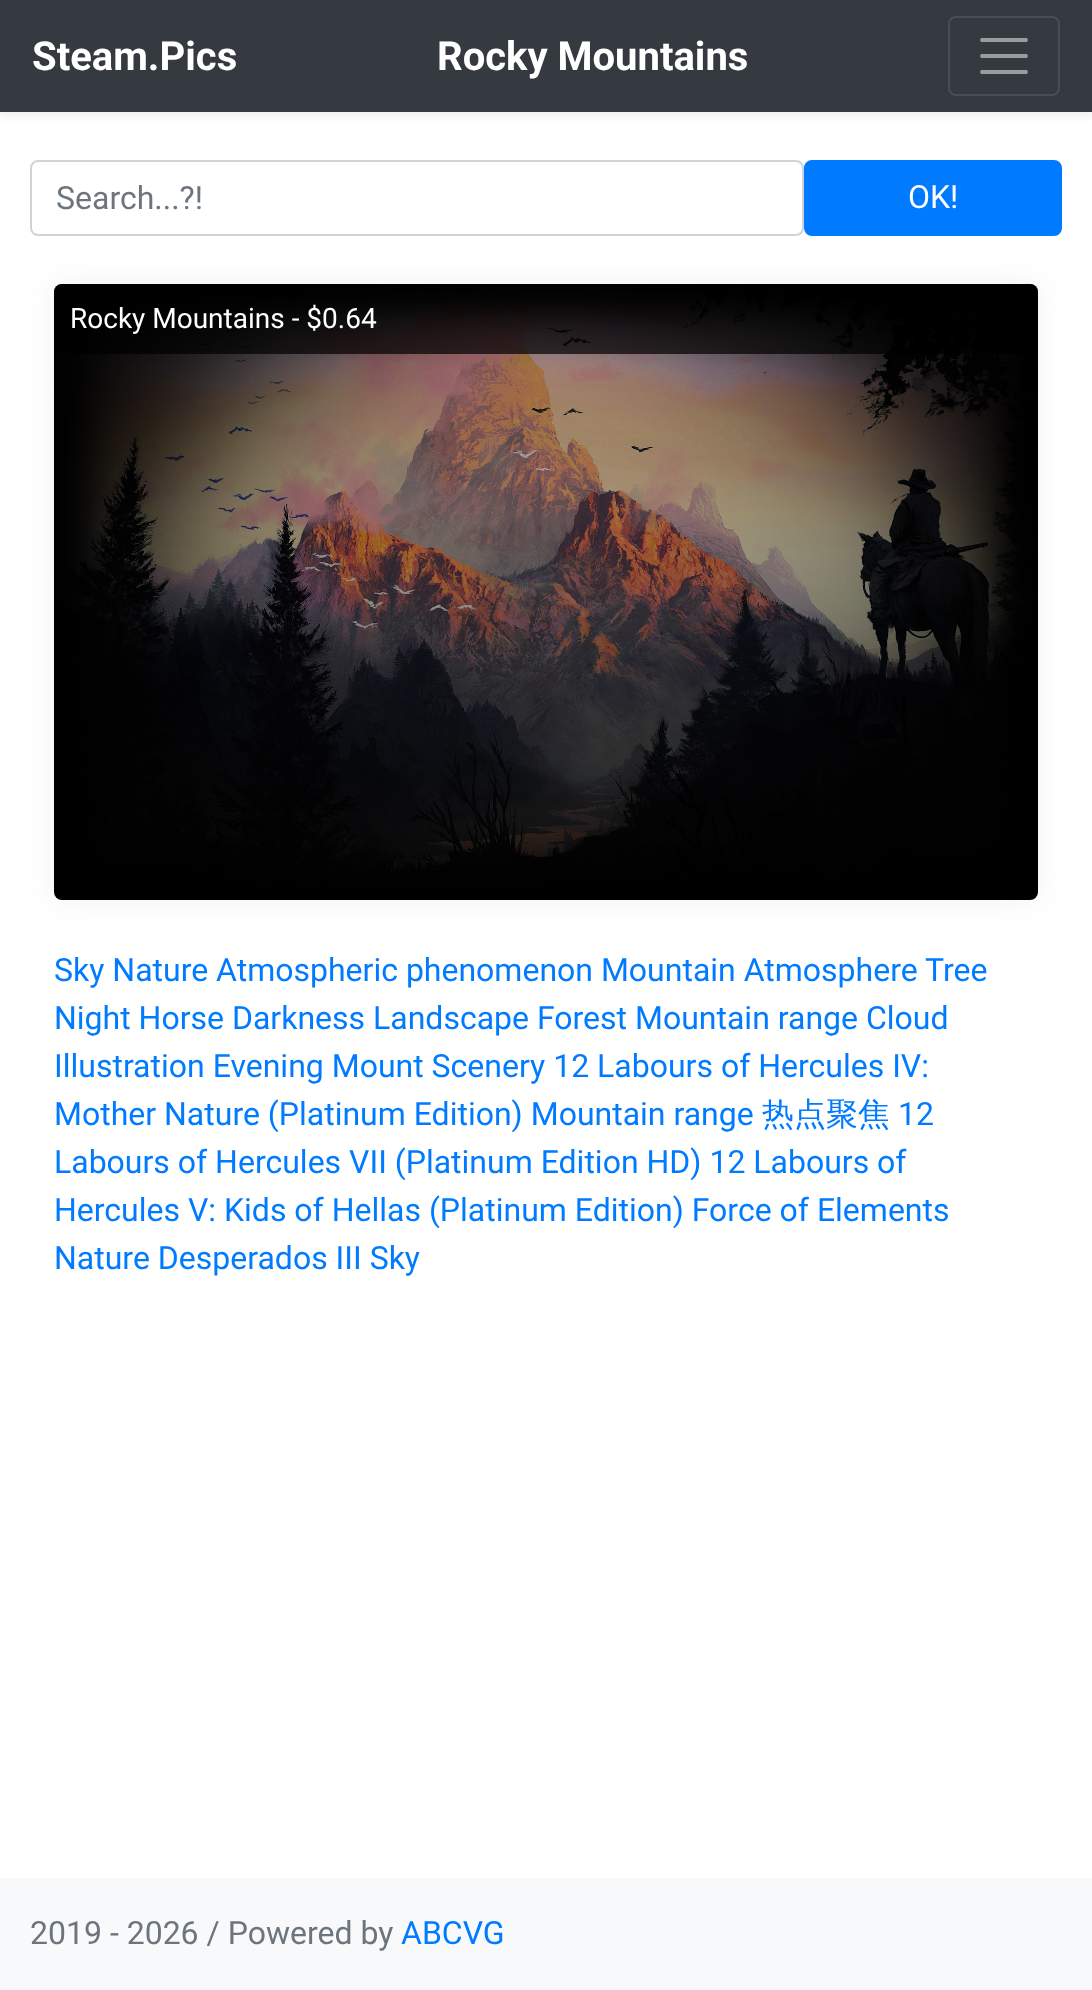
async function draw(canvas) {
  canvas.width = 1092
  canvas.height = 1990
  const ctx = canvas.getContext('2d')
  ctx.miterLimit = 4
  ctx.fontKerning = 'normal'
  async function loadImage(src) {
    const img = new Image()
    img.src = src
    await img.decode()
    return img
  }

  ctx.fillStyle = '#fff'
  ctx.fillRect(0, 0, 1092, 1990)
  ctx.fillStyle = '#00000012'
  ctx.filter = 'blur(4px)'
  ctx.beginPath()
  ctx.rect(0, 4, 1092, 112)
  ctx.fill()
  ctx.filter = 'none'
  ctx.fillStyle = '#343a40'
  ctx.fillRect(0, 0, 1092, 112)
  ctx.font = 'bold 40px Roboto'
  ctx.fillStyle = '#fff'
  ctx.fillText('Steam.Pics', 32, 70)
  ctx.fillText('Rocky Mountains', 437, 70)
  ctx.beginPath()
  ctx.roundRect(949, 17, 110, 78, 7)
  ctx.strokeStyle = '#484e53'
  ctx.lineWidth = 2
  ctx.stroke()
  ctx.beginPath()
  ctx.moveTo(982, 40)
  ctx.lineTo(1026, 40)
  ctx.moveTo(982, 56)
  ctx.lineTo(1026, 56)
  ctx.moveTo(982, 72)
  ctx.lineTo(1026, 72)
  ctx.strokeStyle = '#9a9da0'
  ctx.lineWidth = 4
  ctx.lineCap = 'round'
  ctx.stroke()
  ctx.beginPath()
  ctx.roundRect(31, 161, 772, 74, 7)
  ctx.strokeStyle = '#ced4da'
  ctx.lineWidth = 2
  ctx.stroke()
  ctx.font = '32px Roboto'
  ctx.fillStyle = '#6c757d'
  ctx.fillText('Search...?!', 56, 209)
  ctx.fillStyle = '#007bff'
  ctx.beginPath()
  ctx.roundRect(805, 161, 256, 74, 7)
  ctx.fill()
  ctx.strokeStyle = '#007bff'
  ctx.stroke()
  ctx.fillStyle = '#fff'
  ctx.fillText('OK!', 908, 208)
  ctx.fillStyle = '#9aa1ab26'
  ctx.filter = 'blur(15px)'
  ctx.beginPath()
  ctx.roundRect(54, 284, 984, 616, 8)
  ctx.fill()
  ctx.filter = 'none'
  ctx.drawImage(await loadImage('image0.png'), 54, 284, 984, 616)
  ctx.fillStyle = '#000000b3'
  ctx.beginPath()
  ctx.roundRect(54, 284, 984, 70, [8, 8, 0, 0])
  ctx.fill()
  ctx.font = '28px Roboto'
  ctx.fillStyle = '#fff'
  ctx.fillText('Rocky Mountains - $0.64', 70, 328)
  ctx.font = '32px Roboto'
  ctx.fillStyle = '#007bff'
  ctx.fillText('Sky Nature Atmospheric phenomenon Mountain Atmosphere', 54, 981)
  ctx.fillText('Tree', 925, 981)
  ctx.fillText('Night Horse Darkness Landscape Forest Mountain range Cloud', 54, 1029)
  ctx.fillText('Illustration Evening Mount Scenery 12 Labours of Hercules IV:', 54, 1077)
  ctx.fillText('Mother Nature (Platinum Edition) Mountain range', 54, 1125)
  ctx.font = '500 32px WenQuanYi Zen Hei'
  ctx.fillText('热点聚焦', 762, 1125)
  ctx.font = '32px Roboto'
  ctx.fillText('12', 898, 1125)
  ctx.fillText('Labours of Hercules VII (Platinum Edition HD) 12 Labours of', 54, 1173)
  ctx.fillText('Hercules V: Kids of Hellas (Platinum Edition) Force of Elements', 54, 1221)
  ctx.fillText('Nature Desperados III Sky', 54, 1269)
  ctx.fillStyle = '#f8f9fa'
  ctx.fillRect(0, 1878, 1092, 112)
  ctx.fillStyle = '#6c757d'
  ctx.fillText('2019 - 2026 / Powered by', 30, 1944)
  ctx.fillStyle = '#007bff'
  ctx.fillText('ABCVG', 401, 1944)
}

draw(document.querySelector('canvas'))
